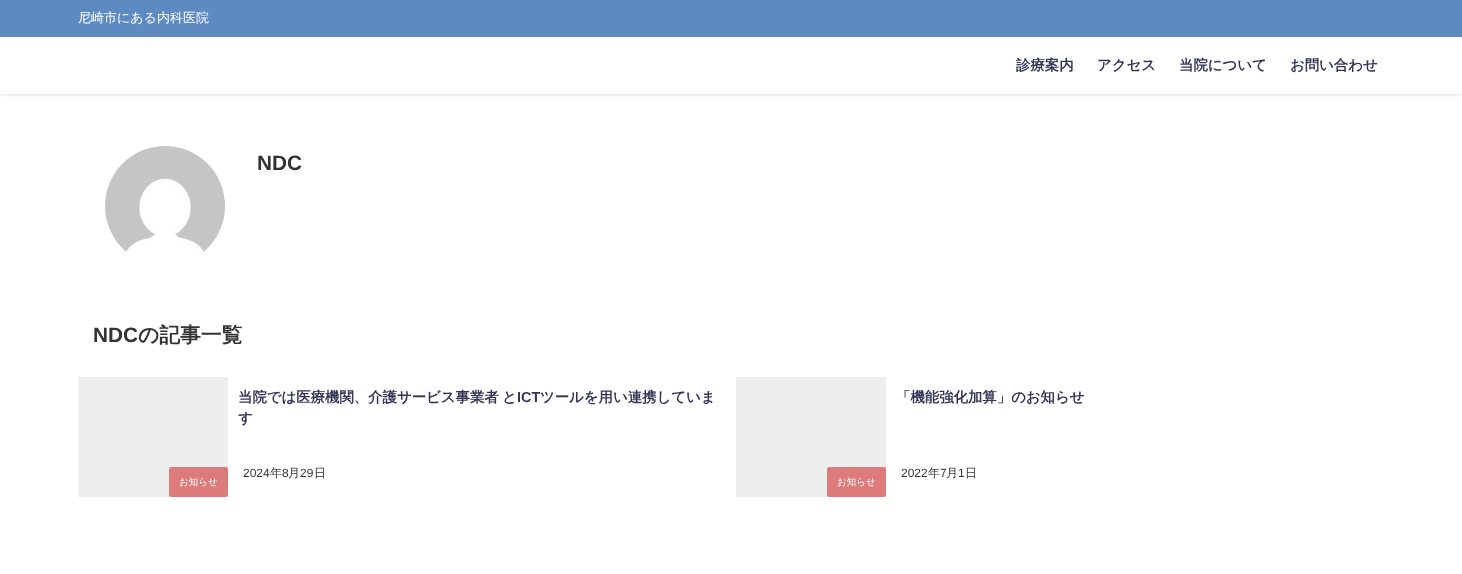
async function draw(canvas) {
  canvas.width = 1462
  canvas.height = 574
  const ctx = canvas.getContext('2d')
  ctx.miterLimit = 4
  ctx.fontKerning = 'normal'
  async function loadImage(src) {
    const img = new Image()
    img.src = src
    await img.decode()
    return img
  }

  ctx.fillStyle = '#fff'
  ctx.fillRect(0, 0, 1462, 574)
  ctx.save()
  ctx.beginPath()
  ctx.rect(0, 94, 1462, 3)
  ctx.clip()
  ctx.fillStyle = '#00000033'
  ctx.filter = 'blur(2px)'
  ctx.beginPath()
  ctx.rect(0, 0, 1462, 94)
  ctx.fill()
  ctx.filter = 'none'
  ctx.restore()
  ctx.fillStyle = '#5d8ac1'
  ctx.fillRect(0, 0, 1462, 37)
  ctx.font = '500 13px WenQuanYi Zen Hei'
  ctx.fillStyle = '#fff'
  ctx.fillText('尼崎市にある内科医院', 78, 22)
  ctx.font = 'bold 14.4px WenQuanYi Zen Hei'
  ctx.fillStyle = '#335'
  ctx.fillText('診療案内', 1016, 70)
  ctx.fillText('アクセス', 1097, 70)
  ctx.fillText('当院について', 1179, 70)
  ctx.fillText('お問い合わせ', 1290, 70)
  ctx.drawImage(await loadImage('image0.png'), 105, 146, 120, 107)
  ctx.font = 'bold 20.75px Liberation Sans'
  ctx.fillStyle = '#333'
  ctx.fillText('NDC', 257, 170)
  ctx.fillText('NDC', 93, 342)
  ctx.font = 'bold 20.75px WenQuanYi Zen Hei'
  ctx.fillText('の記事一覧', 138, 342)
  ctx.wordSpacing = '-1px'
  ctx.font = 'bold 14.4px WenQuanYi Zen Hei'
  ctx.fillStyle = '#335'
  ctx.fillText('当院では医療機関、介護サービス事業者 と', 238, 402)
  ctx.wordSpacing = '0px'
  ctx.font = 'bold 14.4px Liberation Sans'
  ctx.fillText('ICT', 517, 402)
  ctx.font = 'bold 14.4px WenQuanYi Zen Hei'
  ctx.fillText('ツールを用い連携していま', 540, 402)
  ctx.fillText('す', 238, 423)
  ctx.font = '12px Liberation Sans'
  ctx.fillStyle = '#333'
  ctx.fillText('2024', 243, 477)
  ctx.font = '500 12px WenQuanYi Zen Hei'
  ctx.fillText('年', 270, 477)
  ctx.font = '12px Liberation Sans'
  ctx.fillText('8', 282, 477)
  ctx.font = '500 12px WenQuanYi Zen Hei'
  ctx.fillText('月', 288, 477)
  ctx.font = '12px Liberation Sans'
  ctx.fillText('29', 300, 477)
  ctx.font = '500 12px WenQuanYi Zen Hei'
  ctx.fillText('日', 314, 477)
  ctx.fillStyle = '#eee'
  ctx.fillRect(78, 377, 150, 120)
  ctx.fillStyle = '#dd7a7a'
  ctx.beginPath()
  ctx.roundRect(169, 467, 59, 30, 2)
  ctx.fill()
  ctx.font = '500 9.5px WenQuanYi Zen Hei'
  ctx.fillStyle = '#fff'
  ctx.fillText('お知らせ', 179, 485)
  ctx.font = 'bold 14.4px WenQuanYi Zen Hei'
  ctx.fillStyle = '#335'
  ctx.fillText('「機能強化加算」のお知らせ', 896, 402)
  ctx.font = '12px Liberation Sans'
  ctx.fillStyle = '#333'
  ctx.fillText('2022', 901, 477)
  ctx.font = '500 12px WenQuanYi Zen Hei'
  ctx.fillText('年', 928, 477)
  ctx.font = '12px Liberation Sans'
  ctx.fillText('7', 940, 477)
  ctx.font = '500 12px WenQuanYi Zen Hei'
  ctx.fillText('月', 946, 477)
  ctx.font = '12px Liberation Sans'
  ctx.fillText('1', 958, 477)
  ctx.font = '500 12px WenQuanYi Zen Hei'
  ctx.fillText('日', 965, 477)
  ctx.fillStyle = '#eee'
  ctx.fillRect(736, 377, 150, 120)
  ctx.fillStyle = '#dd7a7a'
  ctx.beginPath()
  ctx.roundRect(827, 467, 59, 30, 2)
  ctx.fill()
  ctx.font = '500 9.5px WenQuanYi Zen Hei'
  ctx.fillStyle = '#fff'
  ctx.fillText('お知らせ', 837, 485)
}

draw(document.querySelector('canvas'))
